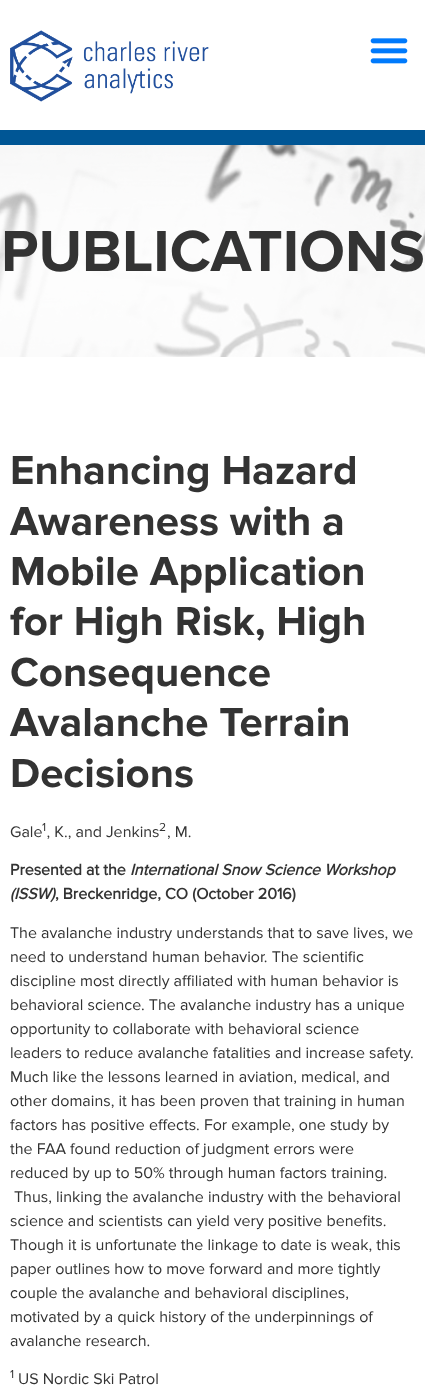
async function draw(canvas) {
  canvas.width = 425
  canvas.height = 1386
  const ctx = canvas.getContext('2d')
  ctx.miterLimit = 4
  ctx.fontKerning = 'normal'
  async function loadImage(src) {
    const img = new Image()
    img.src = src
    await img.decode()
    return img
  }

  ctx.fillStyle = '#fff'
  ctx.fillRect(0, 0, 425, 1386)
  ctx.drawImage(await loadImage('image0.png'), 10, 30, 199, 72)
  ctx.drawImage(await loadImage('image1.png'), 370, 38, 38, 26)
  ctx.drawImage(await loadImage('image2.png'), 0, 145, 425, 212)
  ctx.fillStyle = '#005695'
  ctx.fillRect(0, 130, 425, 15)
  ctx.font = 'bold 60px Proxima Nova'
  ctx.fillStyle = '#333'
  ctx.fillText('PUBLICATIONS', 1, 271)
  ctx.font = 'bold 42px "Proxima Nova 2"'
  ctx.fillText('Enhancing Hazard', 10, 484)
  ctx.fillText('Awareness with a', 10, 535)
  ctx.fillText('Mobile Application', 10, 585)
  ctx.fillText('for High Risk, High', 10, 635)
  ctx.fillText('Consequence', 10, 686)
  ctx.fillText('Avalanche Terrain', 10, 736)
  ctx.fillText('Decisions', 10, 787)
  ctx.font = '16px Proxima Nova'
  ctx.fillText('Gale , K., and Jenkins', 10, 837)
  ctx.font = '12px Proxima Nova'
  ctx.fillText('1', 42, 831)
  ctx.fillText('2', 159, 831)
  ctx.font = '16px Proxima Nova'
  ctx.fillText(', M.', 167, 837)
  ctx.font = 'bold 16px "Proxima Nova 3"'
  ctx.fillText('Presented at the', 10, 875)
  ctx.font = 'italic bold 16px Proxima Nova'
  ctx.fillText('International Snow Science Workshop', 130, 875)
  ctx.fillText('(ISSW)', 10, 899)
  ctx.font = 'bold 16px "Proxima Nova 3"'
  ctx.fillText(', Breckenridge, CO (October 2016)', 55, 899)
  ctx.font = '16px Proxima Nova'
  ctx.fillText('The avalanche industry understands that to save lives, we', 10, 938)
  ctx.fillText('need to understand human behavior. The scientific', 10, 962)
  ctx.fillText('discipline most directly affiliated with human behavior is', 10, 986)
  ctx.fillText('behavioral science. The avalanche industry has a unique', 10, 1010)
  ctx.fillText('opportunity to collaborate with behavioral science', 10, 1034)
  ctx.fillText('leaders to reduce avalanche fatalities and increase safety.', 10, 1058)
  ctx.fillText('Much like the lessons learned in aviation, medical, and', 10, 1082)
  ctx.fillText('other domains, it has been proven that training in human', 10, 1106)
  ctx.fillText('factors has positive effects. For example, one study by', 10, 1130)
  ctx.fillText('the FAA found reduction of judgment errors were', 10, 1154)
  ctx.fillText('reduced by up to 50% through human factors training.', 10, 1178)
  ctx.fillText('Thus, linking the avalanche industry with the behavioral', 14, 1202)
  ctx.fillText('science and scientists can yield very positive benefits.', 10, 1226)
  ctx.fillText('Though it is unfortunate the linkage to date is weak, this', 10, 1250)
  ctx.fillText('paper outlines how to move forward and more tightly', 10, 1274)
  ctx.fillText('couple the avalanche and behavioral disciplines,', 10, 1298)
  ctx.fillText('motivated by a quick history of the underpinnings of', 10, 1322)
  ctx.fillText('avalanche research.', 10, 1346)
  ctx.font = '12px Proxima Nova'
  ctx.fillText('1', 10, 1378)
  ctx.font = '16px Proxima Nova'
  ctx.fillText('US Nordic Ski Patrol', 18, 1384)
}

draw(document.querySelector('canvas'))
